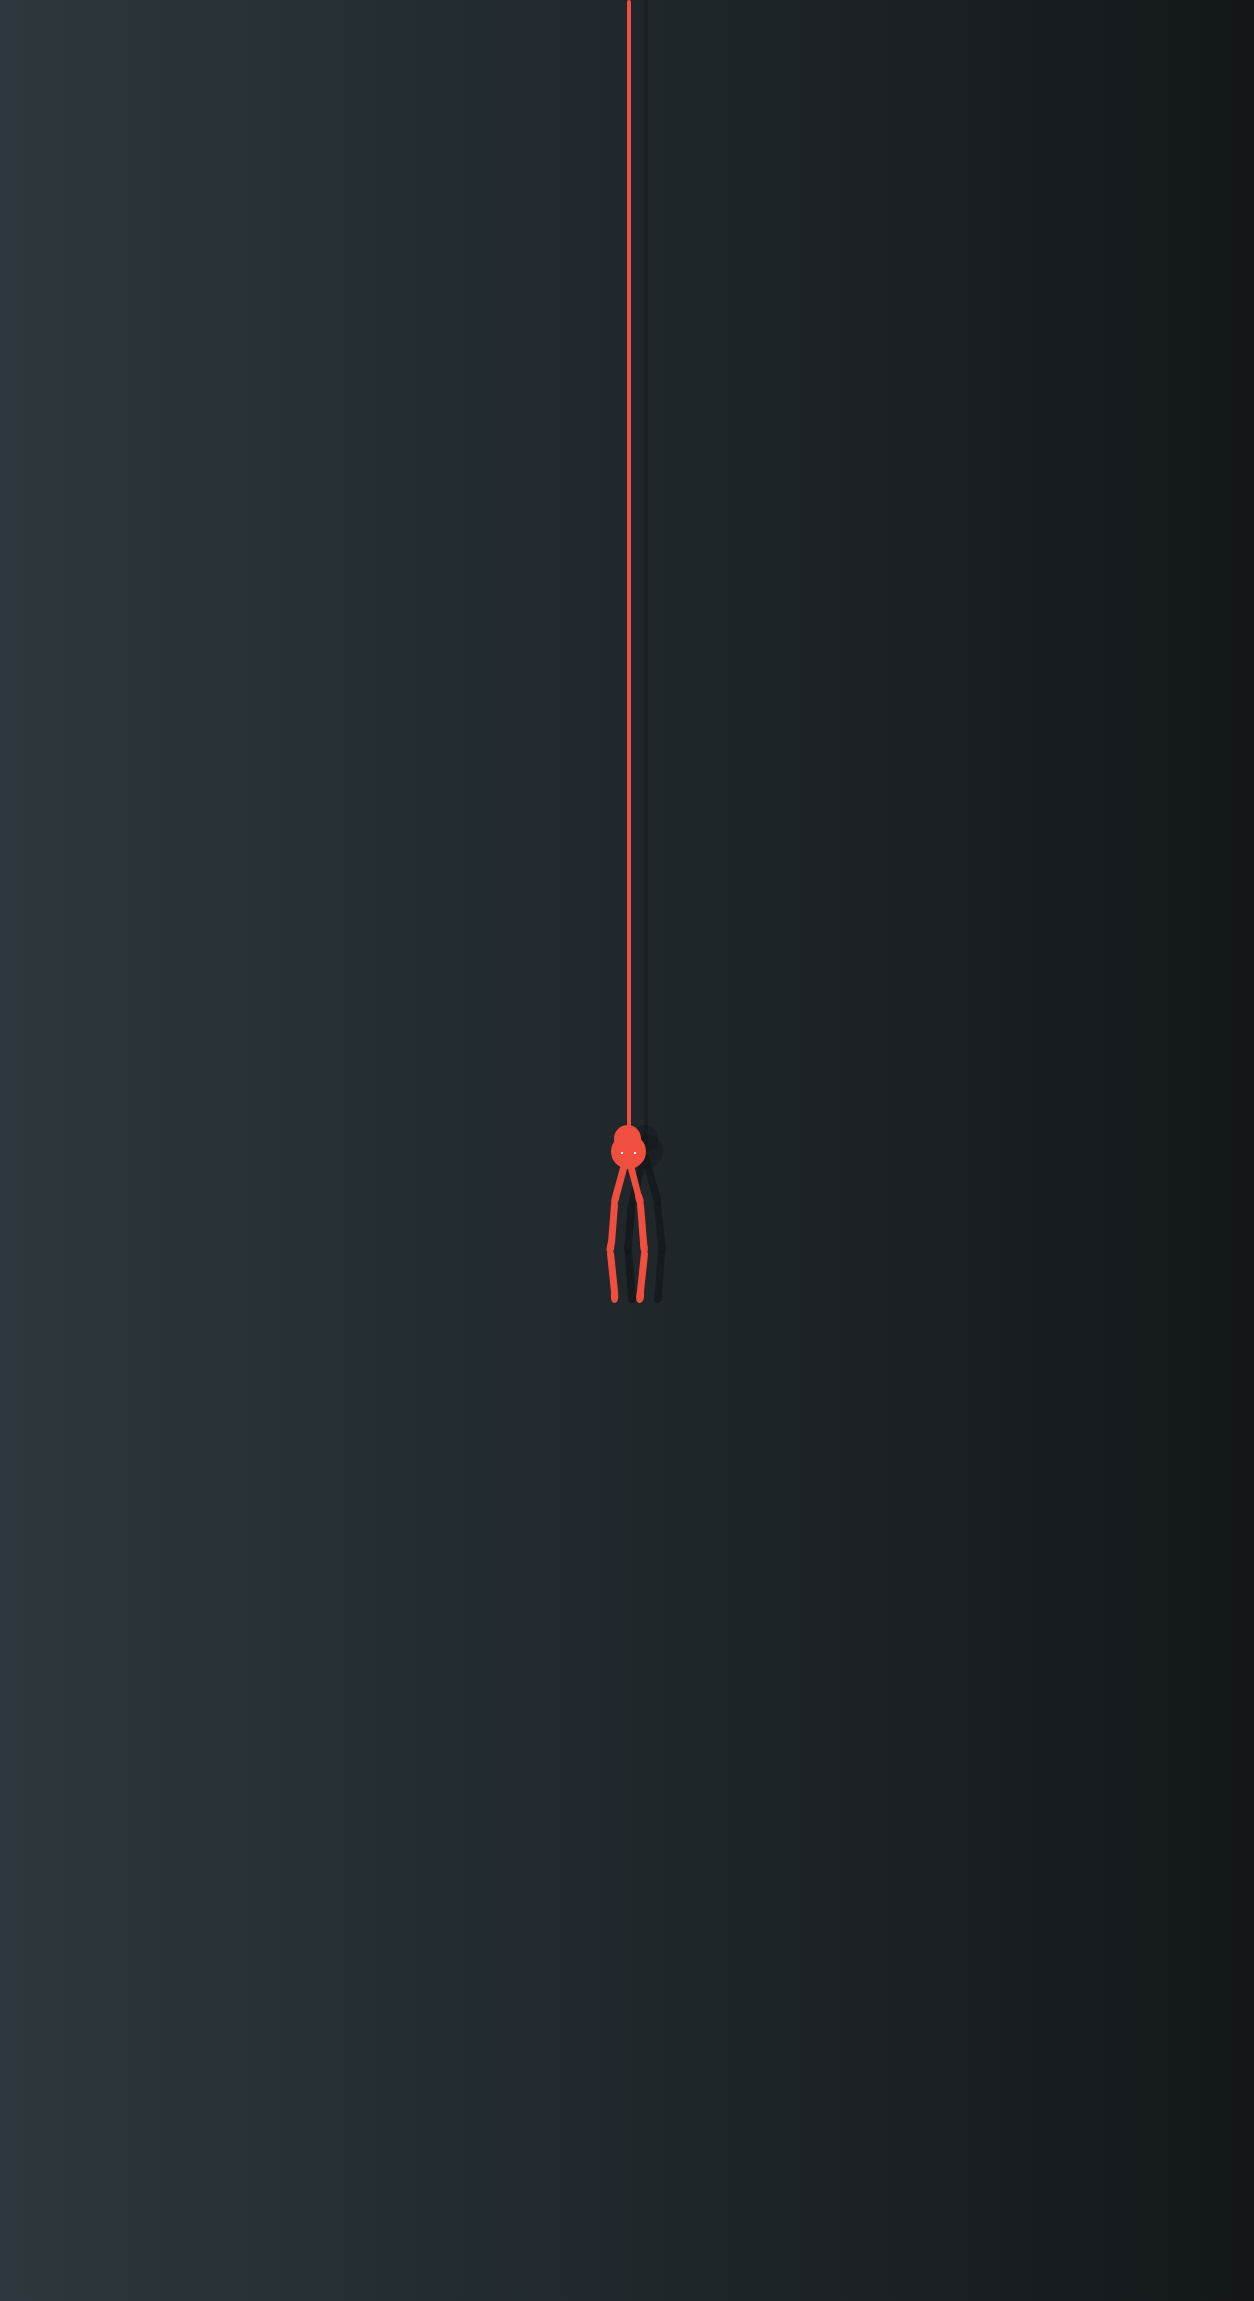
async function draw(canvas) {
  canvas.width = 1254
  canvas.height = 2301
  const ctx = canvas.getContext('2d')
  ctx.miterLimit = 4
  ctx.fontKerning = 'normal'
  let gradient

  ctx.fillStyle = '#fff'
  ctx.fillRect(0, 0, 1254, 2301)
  gradient = ctx.createLinearGradient(0, 1151, 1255, 1151)
  gradient.addColorStop(0, '#2c383d')
  gradient.addColorStop(1, '#13171a')
  ctx.fillStyle = gradient
  ctx.fillRect(0, 0, 1254, 2301)
  ctx.fillStyle = '#191f23'
  ctx.beginPath()
  ctx.roundRect(644, 0, 4, 1152, 2)
  ctx.fill()
  ctx.beginPath()
  ctx.moveTo(641, 1157)
  ctx.lineTo(631, 1193)
  ctx.bezierCurveTo(630, 1195, 627, 1203, 631, 1205)
  ctx.bezierCurveTo(636, 1207, 637, 1197, 638, 1195)
  ctx.lineTo(647, 1158)
  ctx.bezierCurveTo(648, 1154, 642, 1153, 641, 1157)
  ctx.closePath()
  ctx.fill()
  ctx.fillStyle = '#13171a80'
  ctx.beginPath()
  ctx.moveTo(628, 1205)
  ctx.lineTo(625, 1242)
  ctx.bezierCurveTo(625, 1245, 623, 1252, 627, 1254)
  ctx.bezierCurveTo(633, 1255, 632, 1245, 632, 1243)
  ctx.lineTo(635, 1205)
  ctx.bezierCurveTo(635, 1200, 629, 1201, 628, 1205)
  ctx.closePath()
  ctx.fill()
  ctx.beginPath()
  ctx.moveTo(641, 1157)
  ctx.lineTo(631, 1193)
  ctx.bezierCurveTo(630, 1195, 627, 1203, 631, 1205)
  ctx.bezierCurveTo(636, 1207, 637, 1197, 638, 1195)
  ctx.lineTo(647, 1158)
  ctx.bezierCurveTo(648, 1154, 642, 1153, 641, 1157)
  ctx.closePath()
  ctx.fill()
  ctx.beginPath()
  ctx.moveTo(649, 1157)
  ctx.lineTo(659, 1193)
  ctx.bezierCurveTo(660, 1195, 663, 1203, 659, 1205)
  ctx.bezierCurveTo(654, 1207, 653, 1197, 652, 1195)
  ctx.lineTo(642, 1158)
  ctx.bezierCurveTo(642, 1154, 648, 1153, 649, 1157)
  ctx.closePath()
  ctx.fill()
  ctx.beginPath()
  ctx.moveTo(661, 1205)
  ctx.lineTo(665, 1242)
  ctx.bezierCurveTo(665, 1245, 667, 1252, 663, 1254)
  ctx.bezierCurveTo(657, 1255, 658, 1245, 658, 1243)
  ctx.lineTo(654, 1205)
  ctx.bezierCurveTo(655, 1200, 661, 1201, 661, 1205)
  ctx.closePath()
  ctx.fill()
  ctx.beginPath()
  ctx.moveTo(649, 1157)
  ctx.lineTo(659, 1193)
  ctx.bezierCurveTo(660, 1195, 663, 1203, 659, 1205)
  ctx.bezierCurveTo(654, 1207, 653, 1197, 652, 1195)
  ctx.lineTo(642, 1158)
  ctx.bezierCurveTo(642, 1154, 648, 1153, 649, 1157)
  ctx.closePath()
  ctx.fill()
  ctx.beginPath()
  ctx.arc(645.5, 1151.5, 17.5, 0, 2 * Math.PI)
  ctx.fill()
  ctx.fillStyle = '#f04e3e'
  ctx.beginPath()
  ctx.roundRect(627, 0, 4, 1152, 2)
  ctx.fill()
  ctx.fillStyle = '#13171a80'
  ctx.beginPath()
  ctx.moveTo(625, 1254)
  ctx.lineTo(628, 1292)
  ctx.bezierCurveTo(628, 1294, 627, 1302, 632, 1303)
  ctx.bezierCurveTo(638, 1303, 635, 1293, 635, 1291)
  ctx.lineTo(632, 1253)
  ctx.bezierCurveTo(630, 1249, 624, 1250, 625, 1254)
  ctx.closePath()
  ctx.fill()
  ctx.beginPath()
  ctx.moveTo(628, 1205)
  ctx.lineTo(625, 1242)
  ctx.bezierCurveTo(625, 1245, 623, 1252, 627, 1254)
  ctx.bezierCurveTo(633, 1255, 632, 1245, 632, 1243)
  ctx.lineTo(635, 1205)
  ctx.bezierCurveTo(635, 1200, 629, 1201, 628, 1205)
  ctx.closePath()
  ctx.fill()
  ctx.beginPath()
  ctx.moveTo(625, 1254)
  ctx.lineTo(628, 1292)
  ctx.bezierCurveTo(628, 1294, 627, 1302, 632, 1303)
  ctx.bezierCurveTo(638, 1303, 635, 1293, 635, 1291)
  ctx.lineTo(632, 1253)
  ctx.bezierCurveTo(630, 1249, 624, 1250, 625, 1254)
  ctx.closePath()
  ctx.fill()
  ctx.beginPath()
  ctx.moveTo(628, 1205)
  ctx.lineTo(625, 1242)
  ctx.bezierCurveTo(625, 1245, 623, 1252, 627, 1254)
  ctx.bezierCurveTo(633, 1255, 632, 1245, 632, 1243)
  ctx.lineTo(635, 1205)
  ctx.bezierCurveTo(635, 1200, 629, 1201, 628, 1205)
  ctx.closePath()
  ctx.fill()
  ctx.fillStyle = '#f04e3e'
  ctx.beginPath()
  ctx.moveTo(623, 1157)
  ctx.lineTo(613, 1193)
  ctx.bezierCurveTo(613, 1195, 609, 1203, 613, 1205)
  ctx.bezierCurveTo(619, 1207, 619, 1197, 620, 1195)
  ctx.lineTo(630, 1158)
  ctx.bezierCurveTo(630, 1154, 624, 1153, 623, 1157)
  ctx.closePath()
  ctx.fill()
  ctx.beginPath()
  ctx.moveTo(632, 1157)
  ctx.lineTo(641, 1193)
  ctx.bezierCurveTo(642, 1195, 646, 1203, 642, 1205)
  ctx.bezierCurveTo(636, 1207, 635, 1197, 635, 1195)
  ctx.lineTo(625, 1158)
  ctx.bezierCurveTo(625, 1154, 631, 1153, 632, 1157)
  ctx.closePath()
  ctx.fill()
  ctx.fillStyle = '#13171a80'
  ctx.beginPath()
  ctx.roundRect(632, 1125, 26, 27, 13)
  ctx.fill()
  ctx.fillStyle = '#f04e3e'
  ctx.beginPath()
  ctx.arc(628.5, 1151.5, 17.5, 0, 2 * Math.PI)
  ctx.fill()
  ctx.beginPath()
  ctx.arc(627.5, 1138.5, 13.5, 0, 2 * Math.PI)
  ctx.fill()
  ctx.fillStyle = '#fff'
  ctx.fillRect(621, 1152, 2, 2)
  ctx.fillRect(634, 1152, 2, 2)
  ctx.fillStyle = '#f04e3e'
  ctx.beginPath()
  ctx.moveTo(611, 1205)
  ctx.lineTo(608, 1242)
  ctx.bezierCurveTo(607, 1245, 605, 1252, 609, 1254)
  ctx.bezierCurveTo(615, 1255, 614, 1245, 615, 1243)
  ctx.lineTo(618, 1205)
  ctx.bezierCurveTo(617, 1200, 611, 1201, 611, 1205)
  ctx.closePath()
  ctx.fill()
  ctx.beginPath()
  ctx.moveTo(607, 1254)
  ctx.lineTo(611, 1292)
  ctx.bezierCurveTo(611, 1294, 610, 1302, 614, 1303)
  ctx.bezierCurveTo(620, 1303, 618, 1293, 618, 1291)
  ctx.lineTo(614, 1253)
  ctx.bezierCurveTo(613, 1249, 607, 1250, 607, 1254)
  ctx.closePath()
  ctx.fill()
  ctx.beginPath()
  ctx.moveTo(644, 1205)
  ctx.lineTo(647, 1242)
  ctx.bezierCurveTo(647, 1245, 650, 1252, 645, 1254)
  ctx.bezierCurveTo(640, 1255, 640, 1245, 640, 1243)
  ctx.lineTo(637, 1205)
  ctx.bezierCurveTo(637, 1200, 643, 1201, 644, 1205)
  ctx.closePath()
  ctx.fill()
  ctx.beginPath()
  ctx.moveTo(648, 1254)
  ctx.lineTo(644, 1292)
  ctx.bezierCurveTo(644, 1294, 645, 1302, 640, 1303)
  ctx.bezierCurveTo(634, 1303, 637, 1293, 637, 1291)
  ctx.lineTo(641, 1253)
  ctx.bezierCurveTo(642, 1249, 648, 1250, 648, 1254)
  ctx.closePath()
  ctx.fill()
  ctx.fillStyle = '#13171a80'
  ctx.beginPath()
  ctx.moveTo(625, 1254)
  ctx.lineTo(628, 1292)
  ctx.bezierCurveTo(628, 1294, 627, 1302, 632, 1303)
  ctx.bezierCurveTo(638, 1303, 635, 1293, 635, 1291)
  ctx.lineTo(632, 1253)
  ctx.bezierCurveTo(630, 1249, 624, 1250, 625, 1254)
  ctx.closePath()
  ctx.fill()
  ctx.beginPath()
  ctx.moveTo(665, 1254)
  ctx.lineTo(662, 1292)
  ctx.bezierCurveTo(662, 1294, 663, 1302, 658, 1303)
  ctx.bezierCurveTo(652, 1303, 655, 1293, 655, 1291)
  ctx.lineTo(658, 1253)
  ctx.bezierCurveTo(659, 1249, 665, 1250, 665, 1254)
  ctx.closePath()
  ctx.fill()
  ctx.beginPath()
  ctx.moveTo(661, 1205)
  ctx.lineTo(665, 1242)
  ctx.bezierCurveTo(665, 1245, 667, 1252, 663, 1254)
  ctx.bezierCurveTo(657, 1255, 658, 1245, 658, 1243)
  ctx.lineTo(654, 1205)
  ctx.bezierCurveTo(655, 1200, 661, 1201, 661, 1205)
  ctx.closePath()
  ctx.fill()
  ctx.beginPath()
  ctx.moveTo(665, 1254)
  ctx.lineTo(662, 1292)
  ctx.bezierCurveTo(662, 1294, 663, 1302, 658, 1303)
  ctx.bezierCurveTo(652, 1303, 655, 1293, 655, 1291)
  ctx.lineTo(658, 1253)
  ctx.bezierCurveTo(659, 1249, 665, 1250, 665, 1254)
  ctx.closePath()
  ctx.fill()
}

draw(document.querySelector('canvas'))
